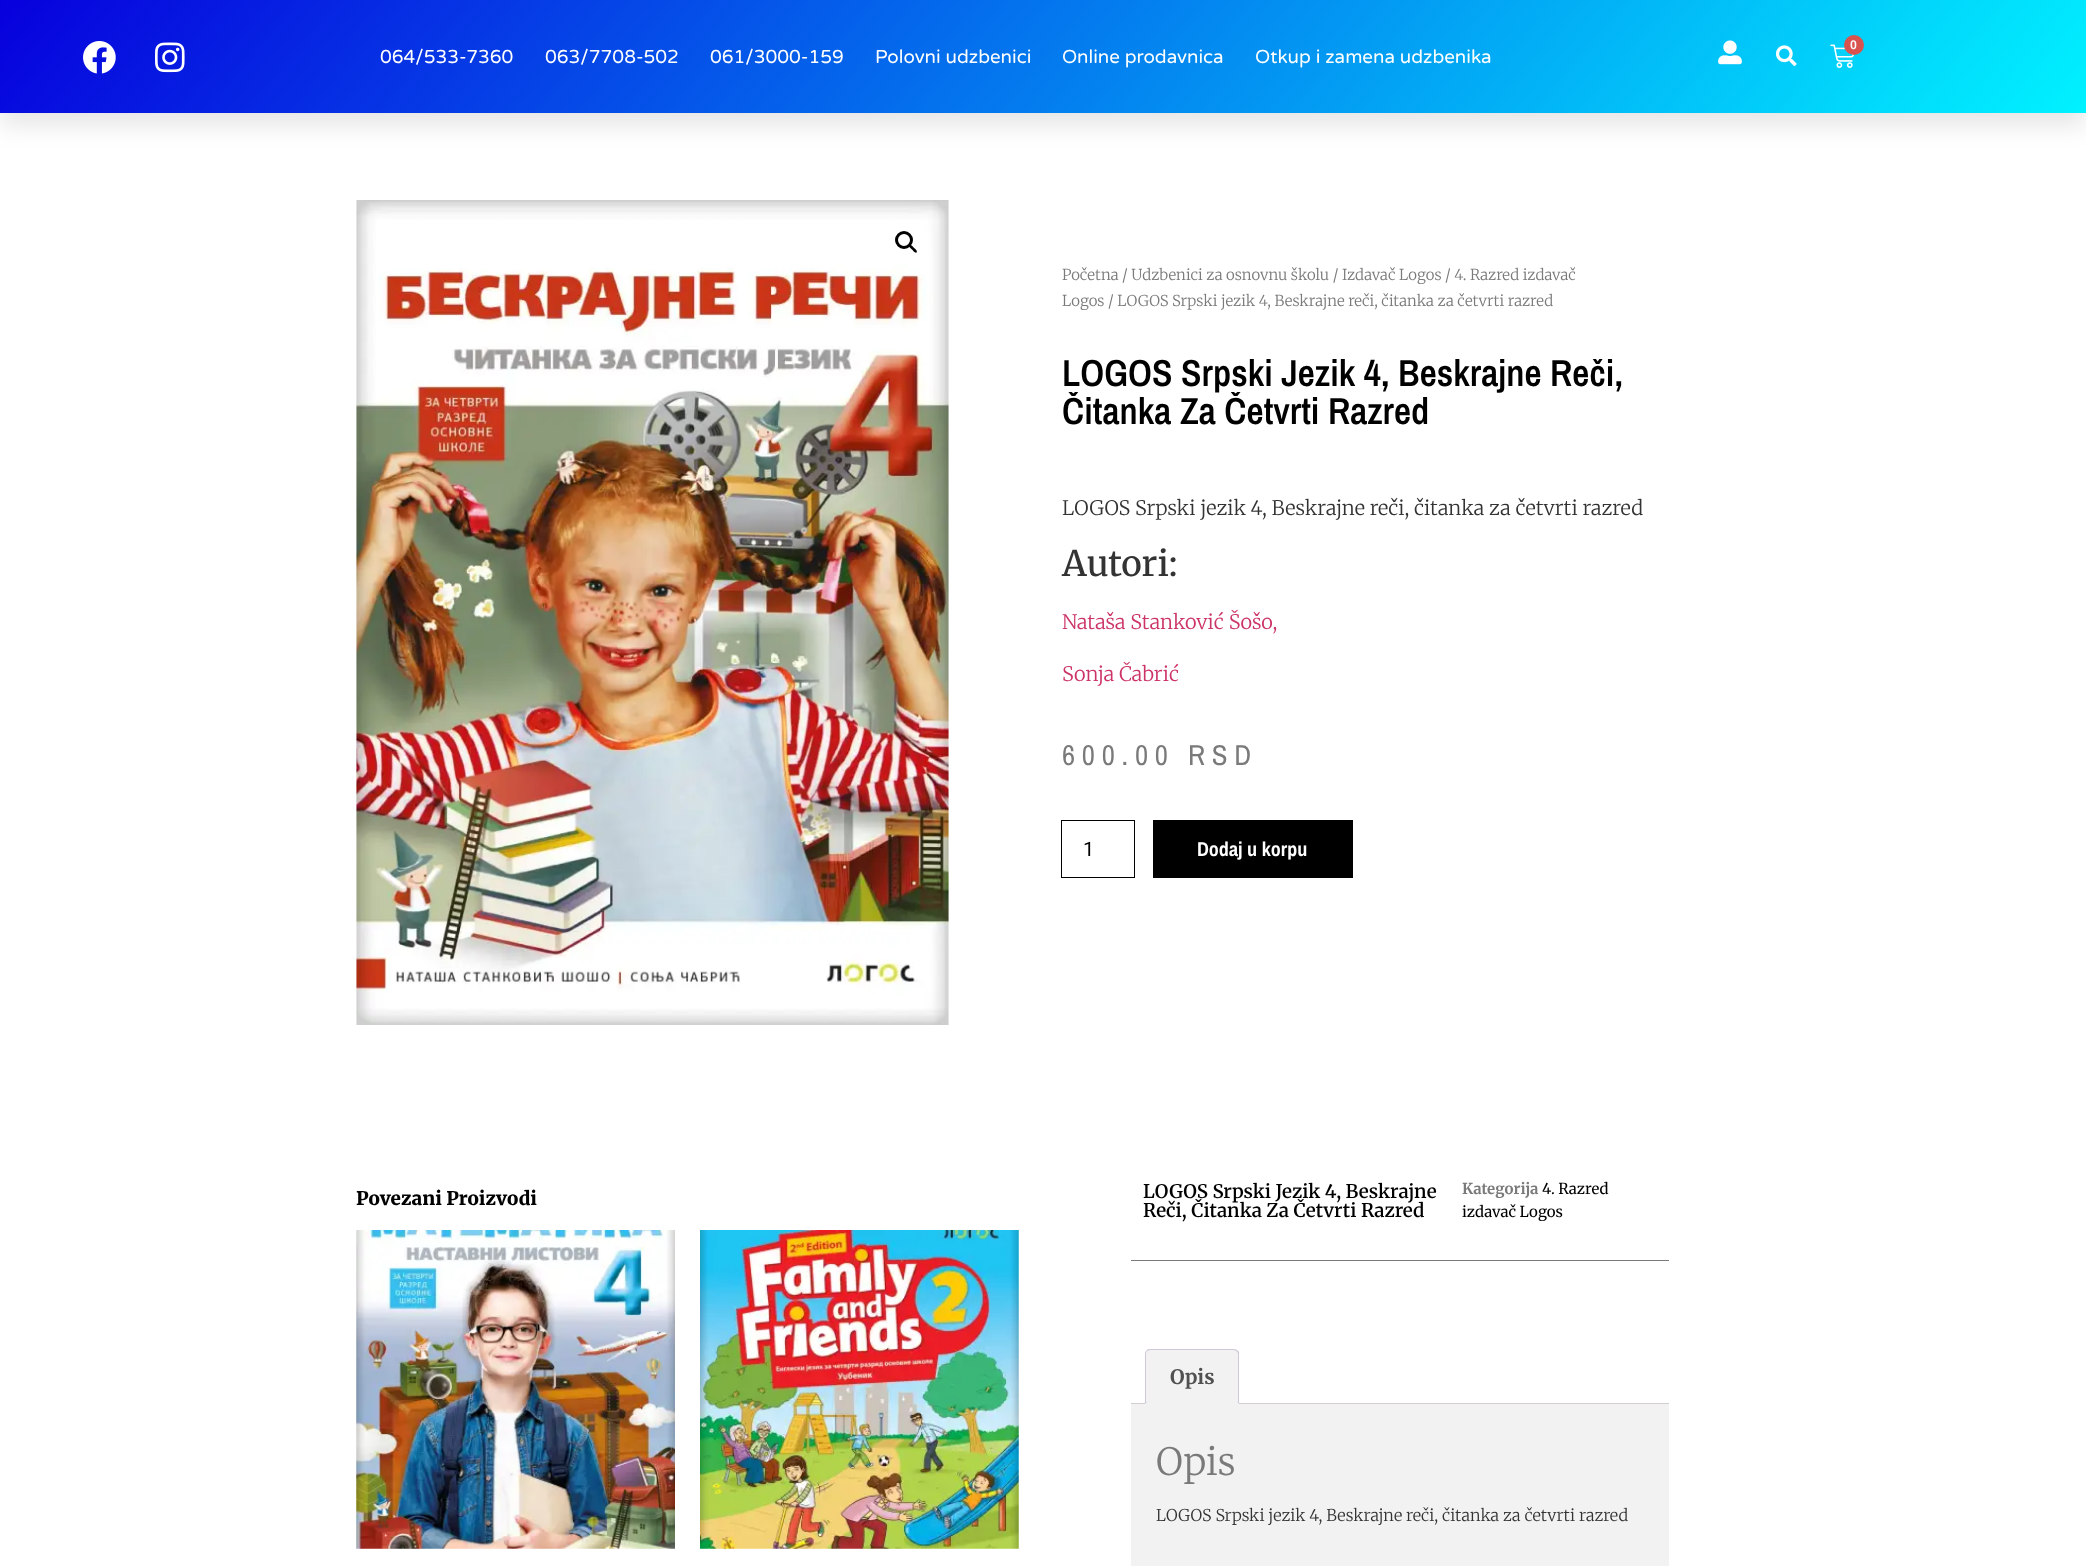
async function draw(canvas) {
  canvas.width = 2086
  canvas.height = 1566
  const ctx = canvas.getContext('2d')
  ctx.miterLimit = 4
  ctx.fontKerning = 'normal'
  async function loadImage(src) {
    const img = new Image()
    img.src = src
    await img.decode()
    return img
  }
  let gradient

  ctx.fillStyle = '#fff'
  ctx.fillRect(0, 0, 2086, 1566)
  ctx.fillStyle = '#0000001a'
  ctx.filter = 'blur(12.5px)'
  ctx.beginPath()
  ctx.rect(0, 13, 2086, 112)
  ctx.fill()
  ctx.filter = 'none'
  gradient = ctx.createLinearGradient(403, -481, 1683, 593)
  gradient.addColorStop(0, '#0700dd')
  gradient.addColorStop(1, '#00f2ff')
  ctx.fillStyle = gradient
  ctx.fillRect(0, 0, 2086, 113)
  ctx.drawImage(await loadImage('image0.png'), 83, 41, 33, 33)
  ctx.drawImage(await loadImage('image1.png'), 155, 42, 30, 31)
  ctx.font = '18.75px Varela Round'
  ctx.fillStyle = '#fff'
  ctx.fillText('064/533-7360', 380, 63)
  ctx.fillText('063/7708-502', 545, 63)
  ctx.fillText('061/3000-159', 710, 63)
  ctx.fillText('Polovni udzbenici', 875, 63)
  ctx.fillText('Online prodavnica', 1062, 63)
  ctx.fillText('Otkup i zamena udzbenika', 1255, 63)
  ctx.drawImage(await loadImage('image2.png'), 1718, 40, 24, 25)
  ctx.drawImage(await loadImage('image3.png'), 1775, 45, 22, 21)
  ctx.drawImage(await loadImage('image4.png'), 1830, 44, 24, 24)
  ctx.fillStyle = '#d9534f'
  ctx.beginPath()
  ctx.arc(1854, 45, 10, 0, 2 * Math.PI)
  ctx.fill()
  ctx.font = '600 12px Roboto'
  ctx.fillStyle = '#fff'
  ctx.fillText('0', 1850, 49)
  ctx.drawImage(await loadImage('image5.png'), 356, 200, 593, 825)
  ctx.beginPath()
  ctx.arc(904, 240, 7.5, 0, 2 * Math.PI)
  ctx.strokeStyle = '#000'
  ctx.lineWidth = 3
  ctx.stroke()
  ctx.fillStyle = '#000'
  ctx.beginPath()
  ctx.moveTo(909.5, 245)
  ctx.bezierCurveTo(911, 244, 913, 247, 914, 248)
  ctx.bezierCurveTo(915, 248.5, 918, 251, 916.5, 252.5)
  ctx.bezierCurveTo(915, 253.5, 913, 250.5, 912, 249.5)
  ctx.bezierCurveTo(911.5, 249, 908, 246.5, 909.5, 245)
  ctx.closePath()
  ctx.fill()
  ctx.font = '300 15px Merriweather'
  ctx.fillStyle = '#7a7a7a'
  ctx.fillText('Početna / Udzbenici za osnovnu školu / Izdavač Logos / 4. Razred izdavač', 1062, 280)
  ctx.fillText('Logos / LOGOS Srpski jezik 4, Beskrajne reči, čitanka za četvrti razred', 1062, 306)
  ctx.font = '600 37.5px Archivo Narrow'
  ctx.fillStyle = '#000'
  ctx.fillText('LOGOS Srpski Jezik 4, Beskrajne Reči,', 1062, 386)
  ctx.fillText('Čitanka Za Četvrti Razred', 1062, 424)
  ctx.font = '300 20px Merriweather'
  ctx.fillStyle = '#333'
  ctx.fillText('LOGOS Srpski jezik 4, Beskrajne reči, čitanka za četvrti razred', 1062, 515)
  ctx.font = '500 35px Merriweather'
  ctx.fillText('Autori:', 1062, 576)
  ctx.font = '300 20px Merriweather'
  ctx.fillStyle = '#c36'
  ctx.fillText('Nataša Stanković Šošo,', 1062, 629)
  ctx.fillText('Sonja Čabrić', 1062, 681)
  ctx.letterSpacing = '6.75px'
  ctx.font = '28.75px Archivo Narrow'
  ctx.fillStyle = '#7a7a7a'
  ctx.fillText('600.00 RSD', 1062, 765)
  ctx.lineWidth = 1
  ctx.strokeRect(1061.5, 820.5, 73, 57)
  ctx.letterSpacing = '0px'
  ctx.font = '20px Roboto'
  ctx.fillStyle = '#000'
  ctx.fillText('1', 1083, 856)
  ctx.fillRect(1153, 820, 200, 58)
  ctx.font = 'bold 20px Archivo Narrow'
  ctx.fillStyle = '#fff'
  ctx.fillText('Dodaj u korpu', 1197, 856)
  ctx.font = '900 18.75px Merriweather'
  ctx.fillStyle = '#000'
  ctx.fillText('Povezani Proizvodi', 356, 1205)
  ctx.drawImage(await loadImage('image6.png'), 356, 1230, 319, 319)
  ctx.drawImage(await loadImage('image7.png'), 700, 1230, 319, 319)
  ctx.fillStyle = '#7a7a7a'
  ctx.fillRect(1131, 1260, 538, 1)
  ctx.font = '600 18.75px Merriweather'
  ctx.fillStyle = '#000'
  ctx.fillText('LOGOS Srpski Jezik 4, Beskrajne', 1143, 1198)
  ctx.fillText('Reči, Čitanka Za Četvrti Razred', 1143, 1217)
  ctx.font = 'bold 15px Merriweather'
  ctx.fillStyle = '#7a7a7a'
  ctx.fillText('Kategorija', 1462, 1194)
  ctx.font = '15px Merriweather'
  ctx.fillStyle = '#000'
  ctx.fillText('4. Razred', 1542, 1194)
  ctx.fillText('izdavač Logos', 1462, 1217)
  ctx.fillStyle = '#d3ced2'
  ctx.fillRect(1131, 1403, 538, 1)
  ctx.fillStyle = '#f2f2f2'
  ctx.beginPath()
  ctx.roundRect(1145, 1349, 94, 55, [5, 5, 0, 0])
  ctx.fill()
  ctx.fillStyle = '#cfc8d8'
  ctx.beginPath()
  ctx.moveTo(1150, 1349)
  ctx.bezierCurveTo(1149, 1349, 1147, 1349, 1147, 1350)
  ctx.lineTo(1147, 1351)
  ctx.lineTo(1150, 1350)
  ctx.lineTo(1234, 1350)
  ctx.lineTo(1236, 1351)
  ctx.lineTo(1237, 1350)
  ctx.lineTo(1234, 1349)
  ctx.closePath()
  ctx.fill()
  ctx.beginPath()
  ctx.moveTo(1237, 1350)
  ctx.lineTo(1239, 1352)
  ctx.lineTo(1239, 1404)
  ctx.lineTo(1237, 1402)
  ctx.lineTo(1238, 1402)
  ctx.lineTo(1238, 1353)
  ctx.lineTo(1236, 1351)
  ctx.closePath()
  ctx.fill()
  ctx.fillStyle = '#f2f2f2'
  ctx.beginPath()
  ctx.moveTo(1239, 1404)
  ctx.lineTo(1237, 1402)
  ctx.lineTo(1147, 1402)
  ctx.lineTo(1145, 1404)
  ctx.closePath()
  ctx.fill()
  ctx.fillStyle = '#cfc8d8'
  ctx.beginPath()
  ctx.moveTo(1145, 1404)
  ctx.lineTo(1147, 1402)
  ctx.lineTo(1146, 1402)
  ctx.lineTo(1146, 1353)
  ctx.lineTo(1147, 1351)
  ctx.lineTo(1147, 1350)
  ctx.bezierCurveTo(1146, 1351, 1145, 1352, 1145, 1354)
  ctx.closePath()
  ctx.fill()
  ctx.font = 'bold 20px Merriweather'
  ctx.fillStyle = '#515151'
  ctx.fillText('Opis', 1170, 1384)
  ctx.fillStyle = '#f2f2f2'
  ctx.fillRect(1131, 1404, 538, 162)
  ctx.font = '300 37.5px Merriweather'
  ctx.fillStyle = '#7a7a7a'
  ctx.fillText('Opis', 1156, 1475)
  ctx.font = '300 16.25px Merriweather'
  ctx.fillStyle = '#333'
  ctx.fillText('LOGOS Srpski jezik 4, Beskrajne reči, čitanka za četvrti razred', 1156, 1521)
}

draw(document.querySelector('canvas'))
